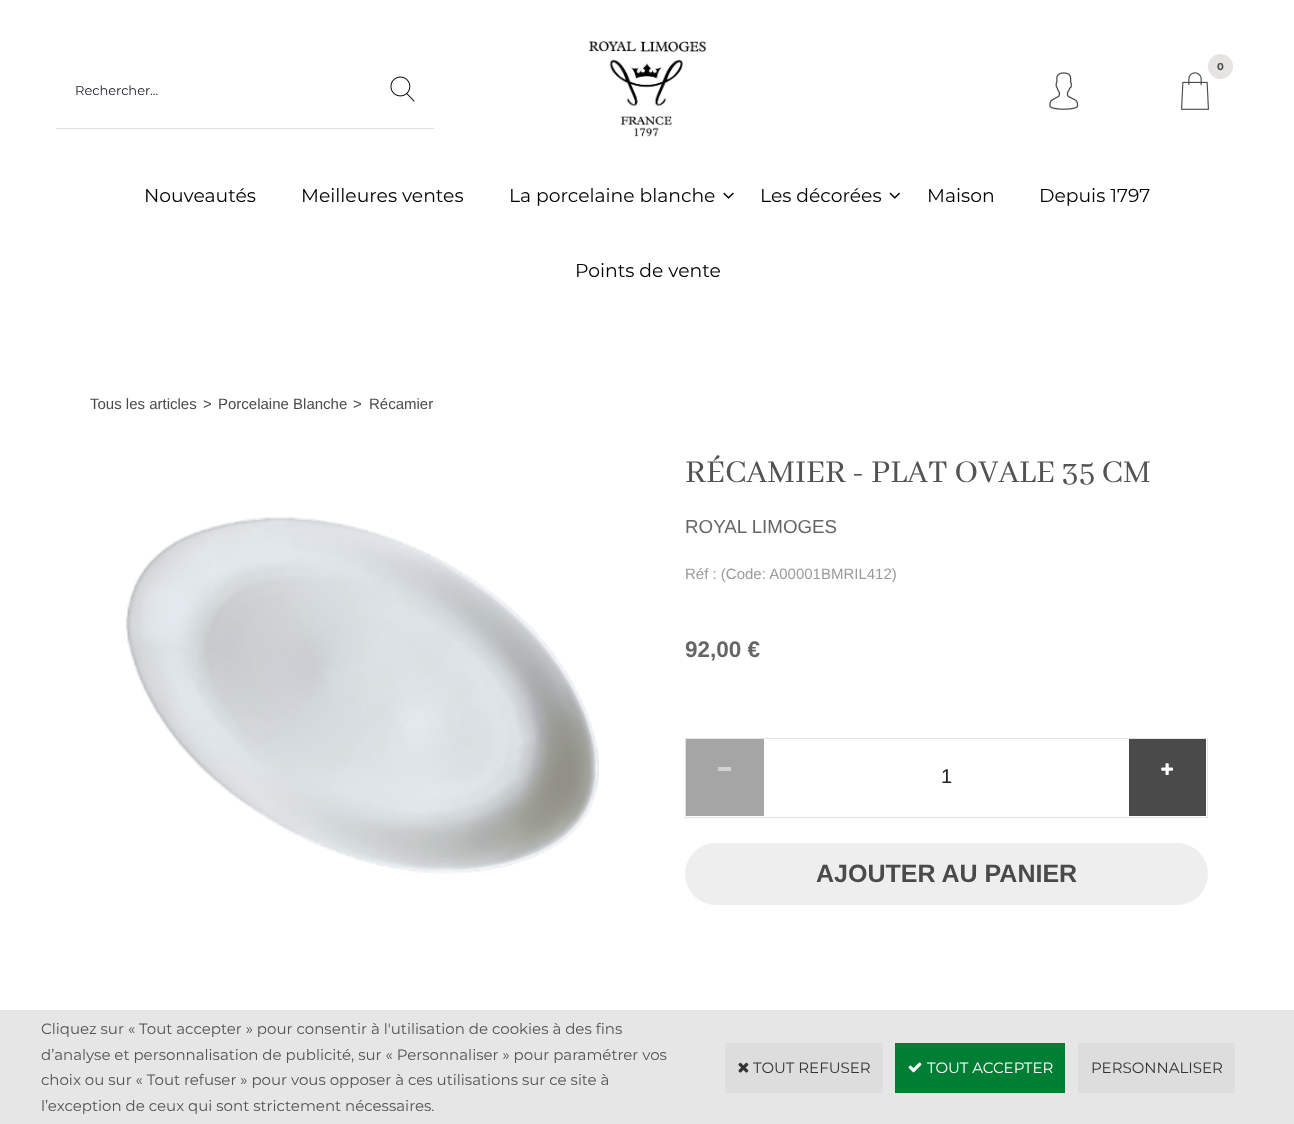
async function draw(canvas) {
  canvas.width = 1294
  canvas.height = 1124
  const ctx = canvas.getContext('2d')
  ctx.miterLimit = 4
  ctx.fontKerning = 'normal'
  async function loadImage(src) {
    const img = new Image()
    img.src = src
    await img.decode()
    return img
  }

  ctx.fillStyle = '#fff'
  ctx.fillRect(0, 0, 1294, 1124)
  ctx.drawImage(await loadImage('image0.png'), 589, 41, 117, 96)
  ctx.drawImage(await loadImage('image1.png'), 1181, 72, 28, 38)
  ctx.fillStyle = '#e6e3e3'
  ctx.beginPath()
  ctx.arc(1220.5, 66.5, 12.5, 0, 2 * Math.PI)
  ctx.fill()
  ctx.font = 'bold 10px Montserrat'
  ctx.fillStyle = '#4a4a4a'
  ctx.fillText('0', 1217, 70)
  ctx.drawImage(await loadImage('image2.png'), 1049, 72, 30, 38)
  ctx.fillStyle = '#e5e0e0'
  ctx.fillRect(56, 128, 378, 1)
  ctx.font = '13px Montserrat'
  ctx.fillStyle = '#1a1f26'
  ctx.fillText('Rechercher...', 75, 95)
  ctx.drawImage(await loadImage('image3.png'), 390, 76, 25, 26)
  ctx.font = '18.75px Montserrat'
  ctx.fillStyle = '#000'
  ctx.fillText('Nouveautés', 144, 202)
  ctx.fillText('Meilleures ventes', 301, 202)
  ctx.fillText('La porcelaine blanche', 509, 202)
  ctx.drawImage(await loadImage('image4.png'), 723, 192, 11, 7)
  ctx.fillText('Les décorées', 760, 202)
  ctx.drawImage(await loadImage('image5.png'), 889, 192, 11, 7)
  ctx.fillText('Maison', 927, 202)
  ctx.fillText('Depuis 1797', 1039, 202)
  ctx.fillText('Points de vente', 575, 277)
  ctx.font = '15px Liberation Sans'
  ctx.fillStyle = '#4a4a4a'
  ctx.fillText('Tous les articles', 90, 409)
  ctx.fillText('>', 203, 409)
  ctx.fillText('Porcelaine Blanche', 218, 409)
  ctx.fillText('>', 353, 409)
  ctx.fillText('Récamier', 369, 409)
  ctx.drawImage(await loadImage('image6.png'), 126, 517, 473, 357)
  ctx.font = '35px Abhaya Libre'
  ctx.fillStyle = '#535352'
  ctx.fillText('RÉCAMIER - PLAT OVALE 35 CM', 685, 482)
  ctx.font = '18.75px Liberation Sans'
  ctx.fillStyle = '#666'
  ctx.fillText('ROYAL LIMOGES', 685, 533)
  ctx.font = '15px Liberation Sans'
  ctx.fillStyle = '#9b9b9b'
  ctx.fillText('Réf : (Code: A00001BMRIL412)', 685, 579)
  ctx.font = 'bold 22.5px Liberation Sans'
  ctx.fillStyle = '#666'
  ctx.fillText('92,00 €', 685, 657)
  ctx.strokeStyle = '#e3e3e3'
  ctx.strokeRect(685.5, 738.5, 522, 79)
  ctx.fillStyle = '#a5a5a5'
  ctx.fillRect(686, 739, 78, 77)
  ctx.fillStyle = '#d2d2d2'
  ctx.fillRect(718, 767, 13, 4)
  ctx.font = '20px Liberation Sans'
  ctx.fillStyle = '#212121'
  ctx.fillText('1', 941, 783)
  ctx.fillStyle = '#4a4a4a'
  ctx.fillRect(1129, 739, 77, 77)
  ctx.drawImage(await loadImage('image7.png'), 1161, 763, 13, 12)
  ctx.fillStyle = '#eee'
  ctx.beginPath()
  ctx.roundRect(685, 843, 523, 62, 31)
  ctx.fill()
  ctx.font = 'bold 25px Liberation Sans'
  ctx.fillStyle = '#4a4a4a'
  ctx.fillText('AJOUTER AU PANIER', 816, 882)
  ctx.fillStyle = '#e6e6e6'
  ctx.fillRect(0, 1010, 1294, 114)
  ctx.font = '15px Montserrat'
  ctx.fillStyle = '#535352'
  ctx.fillText('Cliquez sur « Tout accepter » pour consentir à l\'utilisation de cookies à des fins', 41, 1034)
  ctx.fillText('d’analyse et personnalisation de publicité, sur « Personnaliser » pour paramétrer vos', 41, 1060)
  ctx.fillText('choix ou sur « Tout refuser » pour vous opposer à ces utilisations sur ce site à', 41, 1085)
  ctx.fillText('l’exception de ceux qui sont strictement nécessaires.', 41, 1111)
  ctx.fillStyle = '#ddd'
  ctx.fillRect(725, 1043, 158, 50)
  ctx.drawImage(await loadImage('image8.png'), 738, 1062, 11, 11)
  ctx.fillStyle = '#333'
  ctx.fillText('TOUT REFUSER', 753, 1073)
  ctx.fillStyle = '#007e33'
  ctx.fillRect(895, 1043, 170, 50)
  ctx.drawImage(await loadImage('image9.png'), 908, 1062, 14, 11)
  ctx.fillStyle = '#fff'
  ctx.fillText('TOUT ACCEPTER', 927, 1073)
  ctx.fillStyle = '#ddd'
  ctx.fillRect(1078, 1043, 157, 50)
  ctx.fillStyle = '#333'
  ctx.fillText('PERSONNALISER', 1091, 1073)
}

draw(document.querySelector('canvas'))
